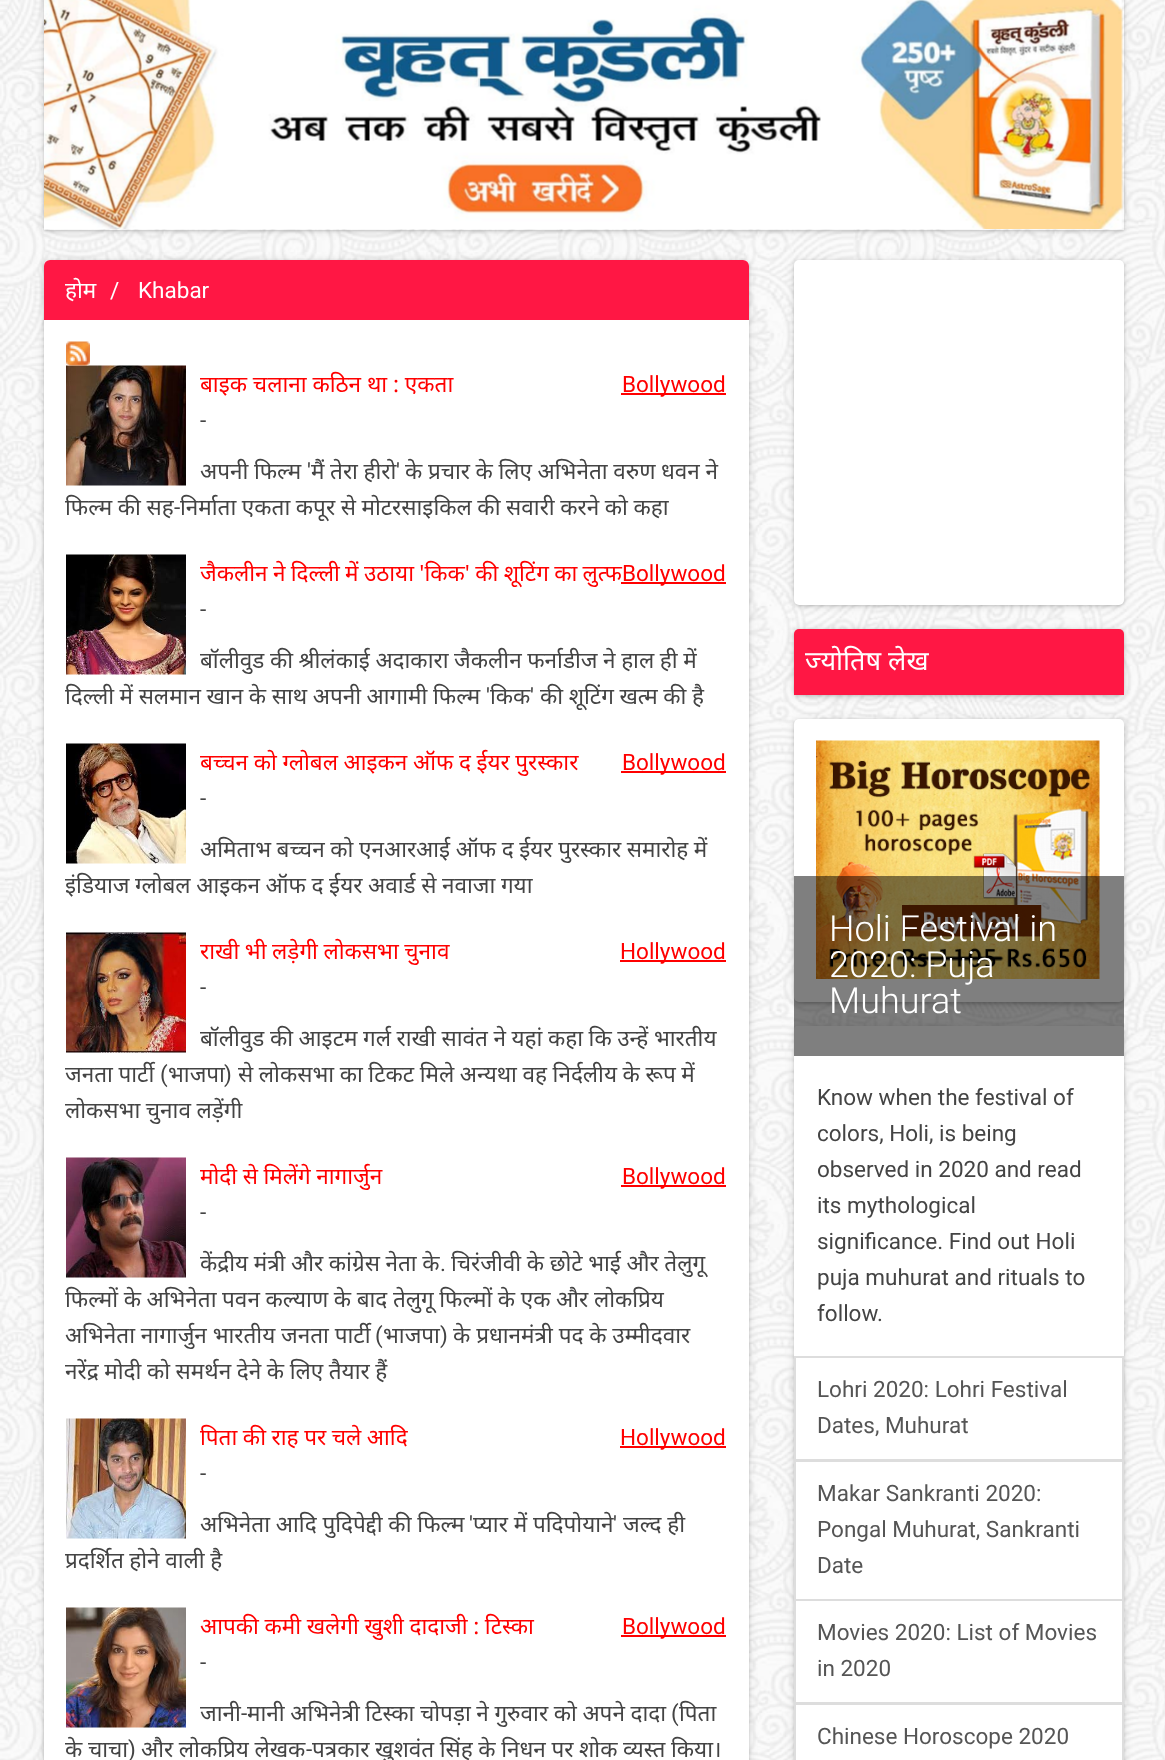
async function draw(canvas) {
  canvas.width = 1165
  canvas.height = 1760
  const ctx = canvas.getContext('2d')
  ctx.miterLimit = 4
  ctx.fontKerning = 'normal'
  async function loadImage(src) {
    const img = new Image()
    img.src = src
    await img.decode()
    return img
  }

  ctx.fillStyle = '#fff'
  ctx.fillRect(0, 0, 1165, 1760)
  ctx.drawImage(await loadImage('image0.png'), 0, 0, 1165, 1760)
  ctx.save()
  ctx.beginPath()
  ctx.moveTo(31, 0)
  ctx.lineTo(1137, 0)
  ctx.lineTo(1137, 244)
  ctx.lineTo(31, 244)
  ctx.closePath()
  ctx.moveTo(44, -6)
  ctx.lineTo(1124, -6)
  ctx.lineTo(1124, 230)
  ctx.lineTo(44, 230)
  ctx.closePath()
  ctx.clip('evenodd')
  ctx.fillStyle = '#0000001f'
  ctx.filter = 'blur(4px)'
  ctx.beginPath()
  ctx.rect(44, -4, 1080, 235)
  ctx.fill()
  ctx.filter = 'none'
  ctx.restore()
  ctx.save()
  ctx.beginPath()
  ctx.moveTo(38, 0)
  ctx.lineTo(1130, 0)
  ctx.lineTo(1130, 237)
  ctx.lineTo(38, 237)
  ctx.closePath()
  ctx.moveTo(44, -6)
  ctx.lineTo(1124, -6)
  ctx.lineTo(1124, 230)
  ctx.lineTo(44, 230)
  ctx.closePath()
  ctx.clip('evenodd')
  ctx.fillStyle = '#00000029'
  ctx.filter = 'blur(1.5px)'
  ctx.beginPath()
  ctx.rect(44, -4, 1080, 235)
  ctx.fill()
  ctx.filter = 'none'
  ctx.restore()
  ctx.drawImage(await loadImage('image1.png'), 44, 0, 1079, 229)
  ctx.fillStyle = '#0000001f'
  ctx.filter = 'blur(4px)'
  ctx.beginPath()
  ctx.roundRect(44, 261, 705, 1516, 5)
  ctx.fill()
  ctx.filter = 'none'
  ctx.fillStyle = '#00000029'
  ctx.filter = 'blur(1.5px)'
  ctx.beginPath()
  ctx.roundRect(44, 261, 705, 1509, 5)
  ctx.fill()
  ctx.filter = 'none'
  ctx.fillStyle = '#fff'
  ctx.beginPath()
  ctx.roundRect(44, 260, 705, 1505, 5)
  ctx.fill()
  ctx.fillStyle = '#ff1744'
  ctx.beginPath()
  ctx.roundRect(44, 260, 705, 60, [6, 6, 0, 0])
  ctx.fill()
  ctx.font = '22.5px Noto Sans'
  ctx.fillStyle = '#fff'
  ctx.fillText('होम', 65, 298)
  ctx.font = '22.5px Roboto'
  ctx.fillText('/', 110, 298)
  ctx.fillText('Khabar', 138, 298)
  ctx.drawImage(await loadImage('image3.png'), 66, 365, 120, 121)
  ctx.drawImage(await loadImage('image2.png'), 66, 341, 24, 25)
  ctx.font = '22.5px Noto Sans'
  ctx.fillStyle = '#f00'
  ctx.fillText('बाइक चलाना कठिन था : एकता', 200, 392)
  ctx.fillRect(621, 393, 105, 2)
  ctx.font = '22.5px Roboto'
  ctx.fillText('Bollywood', 622, 392)
  ctx.fillStyle = '#444'
  ctx.fillText('-', 200, 428)
  ctx.wordSpacing = '-0.25px'
  ctx.font = '22.5px Noto Sans'
  ctx.fillText('अपनी फिल्म', 200, 479)
  ctx.wordSpacing = '0px'
  ctx.font = '22.5px Roboto'
  ctx.fillText('\'', 307, 479)
  ctx.wordSpacing = '-0.25px'
  ctx.font = '22.5px Noto Sans'
  ctx.fillText('मैं तेरा हीरो', 311, 479)
  ctx.wordSpacing = '0px'
  ctx.font = '22.5px Roboto'
  ctx.fillText('\'', 396, 479)
  ctx.wordSpacing = '-0.25px'
  ctx.font = '22.5px Noto Sans'
  ctx.fillText('के प्रचार के लिए अभिनेता वरुण धवन ने', 405, 479)
  ctx.fillText('फिल्म की सह', 65, 515)
  ctx.wordSpacing = '0px'
  ctx.font = '22.5px Roboto'
  ctx.fillText('-', 174, 515)
  ctx.wordSpacing = '-0.25px'
  ctx.font = '22.5px Noto Sans'
  ctx.fillText('निर्माता एकता कपूर से मोटरसाइकिल की सवारी करने को कहा', 180, 515)
  ctx.drawImage(await loadImage('image4.png'), 66, 554, 120, 121)
  ctx.fillStyle = '#f00'
  ctx.fillRect(621, 582, 105, 2)
  ctx.wordSpacing = '-0.5px'
  ctx.fillText('जैकलीन ने दिल्ली में उठाया \'किक\' की शूटिंग का लुत्फ', 200, 581)
  ctx.wordSpacing = '0px'
  ctx.font = '22.5px Roboto'
  ctx.fillText('Bollywood', 622, 581)
  ctx.fillStyle = '#444'
  ctx.fillText('-', 200, 617)
  ctx.wordSpacing = '-0.25px'
  ctx.font = '22.5px Noto Sans'
  ctx.fillText('बॉलीवुड की श्रीलंकाई अदाकारा जैकलीन फर्नाडीज ने हाल ही में', 200, 668)
  ctx.fillText('दिल्ली में सलमान खान के साथ अपनी आगामी फिल्म', 65, 704)
  ctx.wordSpacing = '0px'
  ctx.font = '22.5px Roboto'
  ctx.fillText('\'', 486, 704)
  ctx.font = '22.5px Noto Sans'
  ctx.fillText('किक', 490, 704)
  ctx.font = '22.5px Roboto'
  ctx.fillText('\'', 530, 704)
  ctx.wordSpacing = '-0.25px'
  ctx.font = '22.5px Noto Sans'
  ctx.fillText('की शूटिंग खत्म की है', 540, 704)
  ctx.drawImage(await loadImage('image5.png'), 66, 743, 120, 121)
  ctx.fillStyle = '#f00'
  ctx.fillText('बच्चन को ग्लोबल आइकन ऑफ द ईयर पुरस्कार', 200, 770)
  ctx.fillRect(621, 771, 105, 2)
  ctx.wordSpacing = '0px'
  ctx.font = '22.5px Roboto'
  ctx.fillText('Bollywood', 622, 770)
  ctx.fillStyle = '#444'
  ctx.fillText('-', 200, 806)
  ctx.wordSpacing = '-0.25px'
  ctx.font = '22.5px Noto Sans'
  ctx.fillText('अमिताभ बच्चन को एनआरआई ऑफ द ईयर पुरस्कार समारोह में', 200, 857)
  ctx.fillText('इंडियाज ग्लोबल आइकन ऑफ द ईयर अवार्ड से नवाजा गया', 65, 893)
  ctx.drawImage(await loadImage('image6.png'), 66, 932, 120, 121)
  ctx.fillStyle = '#f00'
  ctx.fillText('राखी भी लड़ेगी लोकसभा चुनाव', 200, 959)
  ctx.fillRect(620, 960, 106, 2)
  ctx.wordSpacing = '0px'
  ctx.font = '22.5px Roboto'
  ctx.fillText('Hollywood', 620, 959)
  ctx.fillStyle = '#444'
  ctx.fillText('-', 200, 995)
  ctx.wordSpacing = '-0.25px'
  ctx.font = '22.5px Noto Sans'
  ctx.fillText('बॉलीवुड की आइटम गर्ल राखी सावंत ने यहां कहा कि उन्हें भारतीय', 200, 1046)
  ctx.fillText('जनता पार्टी', 65, 1082)
  ctx.wordSpacing = '0px'
  ctx.font = '22.5px Roboto'
  ctx.fillText('(', 160, 1082)
  ctx.font = '22.5px Noto Sans'
  ctx.fillText('भाजपा', 168, 1082)
  ctx.font = '22.5px Roboto'
  ctx.fillText(')', 224, 1082)
  ctx.wordSpacing = '-0.25px'
  ctx.font = '22.5px Noto Sans'
  ctx.fillText('से लोकसभा का टिकट मिले अन्यथा वह निर्दलीय के रूप में', 238, 1082)
  ctx.fillText('लोकसभा चुनाव लड़ेंगी', 65, 1118)
  ctx.drawImage(await loadImage('image7.png'), 66, 1157, 120, 121)
  ctx.fillStyle = '#f00'
  ctx.fillText('मोदी से मिलेंगे नागार्जुन', 200, 1184)
  ctx.fillRect(621, 1185, 105, 2)
  ctx.wordSpacing = '0px'
  ctx.font = '22.5px Roboto'
  ctx.fillText('Bollywood', 622, 1184)
  ctx.fillStyle = '#444'
  ctx.fillText('-', 200, 1220)
  ctx.wordSpacing = '-0.25px'
  ctx.font = '22.5px Noto Sans'
  ctx.fillText('केंद्रीय मंत्री और कांग्रेस नेता के', 200, 1271)
  ctx.wordSpacing = '0px'
  ctx.font = '22.5px Roboto'
  ctx.fillText('.', 440, 1271)
  ctx.wordSpacing = '-0.25px'
  ctx.font = '22.5px Noto Sans'
  ctx.fillText('चिरंजीवी के छोटे भाई और तेलुगू', 451, 1271)
  ctx.fillText('फिल्मों के अभिनेता पवन कल्याण के बाद तेलुगू फिल्मों के एक और लोकप्रिय', 65, 1307)
  ctx.wordSpacing = '0px'
  ctx.fillText('अभिनेता नागार्जुन भारतीय जनता पार्टी', 65, 1343)
  ctx.font = '22.5px Roboto'
  ctx.fillText('(', 375, 1343)
  ctx.fillText(')', 440, 1343)
  ctx.font = '22.5px Noto Sans'
  ctx.fillText('के प्रधानमंत्री पद के उम्मीदवार', 453, 1343)
  ctx.fillText('भाजपा', 383, 1343)
  ctx.wordSpacing = '-0.25px'
  ctx.fillText('नरेंद्र मोदी को समर्थन देने के लिए तैयार हैं', 65, 1379)
  ctx.drawImage(await loadImage('image8.png'), 66, 1418, 120, 121)
  ctx.fillStyle = '#f00'
  ctx.fillText('पिता की राह पर चले आदि', 200, 1445)
  ctx.fillRect(620, 1446, 106, 2)
  ctx.wordSpacing = '0px'
  ctx.font = '22.5px Roboto'
  ctx.fillText('Hollywood', 620, 1445)
  ctx.fillStyle = '#444'
  ctx.fillText('-', 200, 1481)
  ctx.font = '22.5px Noto Sans'
  ctx.fillText('अभिनेता आदि पुदिपेद्दी की फिल्म', 200, 1532)
  ctx.font = '22.5px Roboto'
  ctx.fillText('\'', 469, 1532)
  ctx.font = '22.5px Noto Sans'
  ctx.fillText('प्यार में पदिपोयाने', 473, 1532)
  ctx.font = '22.5px Roboto'
  ctx.fillText('\'', 613, 1532)
  ctx.font = '22.5px Noto Sans'
  ctx.fillText('जल्द ही', 623, 1532)
  ctx.wordSpacing = '-0.25px'
  ctx.fillText('प्रदर्शित होने वाली है', 65, 1568)
  ctx.drawImage(await loadImage('image9.png'), 66, 1607, 120, 121)
  ctx.fillStyle = '#f00'
  ctx.fillText('आपकी कमी खलेगी खुशी दादाजी : टिस्का', 200, 1634)
  ctx.fillRect(621, 1635, 105, 2)
  ctx.wordSpacing = '0px'
  ctx.font = '22.5px Roboto'
  ctx.fillText('Bollywood', 622, 1634)
  ctx.fillStyle = '#444'
  ctx.fillText('-', 200, 1670)
  ctx.font = '22.5px Noto Sans'
  ctx.fillText('जानी', 200, 1721)
  ctx.font = '22.5px Roboto'
  ctx.fillText('-', 241, 1721)
  ctx.wordSpacing = '-0.25px'
  ctx.font = '22.5px Noto Sans'
  ctx.fillText('मानी अभिनेत्री टिस्का चोपड़ा ने गुरुवार को अपने दादा', 247, 1721)
  ctx.wordSpacing = '0px'
  ctx.font = '22.5px Roboto'
  ctx.fillText('(', 671, 1721)
  ctx.font = '22.5px Noto Sans'
  ctx.fillText('पिता', 679, 1721)
  ctx.wordSpacing = '-0.25px'
  ctx.fillText('के चाचा', 65, 1757)
  ctx.wordSpacing = '0px'
  ctx.font = '22.5px Roboto'
  ctx.fillText(')', 128, 1757)
  ctx.wordSpacing = '-0.25px'
  ctx.font = '22.5px Noto Sans'
  ctx.fillText('और लोकप्रिय लेखक', 141, 1757)
  ctx.wordSpacing = '0px'
  ctx.font = '22.5px Roboto'
  ctx.fillText('-', 306, 1757)
  ctx.wordSpacing = '-0.25px'
  ctx.font = '22.5px Noto Sans'
  ctx.fillText('पत्रकार खुशवंत सिंह के निधन पर शोक व्यस्त किया।', 312, 1757)
  ctx.fillStyle = '#0000001f'
  ctx.filter = 'blur(4px)'
  ctx.beginPath()
  ctx.roundRect(794, 261, 330, 345, 5)
  ctx.fill()
  ctx.filter = 'none'
  ctx.fillStyle = '#00000029'
  ctx.filter = 'blur(1.5px)'
  ctx.beginPath()
  ctx.roundRect(794, 261, 330, 345, 5)
  ctx.fill()
  ctx.filter = 'none'
  ctx.fillStyle = '#fff'
  ctx.beginPath()
  ctx.roundRect(794, 260, 330, 345, 5)
  ctx.fill()
  ctx.fillStyle = '#0000001f'
  ctx.filter = 'blur(4px)'
  ctx.beginPath()
  ctx.roundRect(794, 630, 330, 66, 5)
  ctx.fill()
  ctx.filter = 'none'
  ctx.fillStyle = '#00000029'
  ctx.filter = 'blur(1.5px)'
  ctx.beginPath()
  ctx.roundRect(794, 630, 330, 66, 5)
  ctx.fill()
  ctx.filter = 'none'
  ctx.fillStyle = '#ff1744'
  ctx.beginPath()
  ctx.roundRect(794, 629, 330, 66, [5, 5, 0, 0])
  ctx.fill()
  ctx.wordSpacing = '0px'
  ctx.font = '27px Noto Sans'
  ctx.fillStyle = '#fff'
  ctx.fillText('ज्योतिष लेख', 805, 670)
  ctx.fillStyle = '#0000001f'
  ctx.filter = 'blur(4px)'
  ctx.beginPath()
  ctx.roundRect(794, 720, 330, 284, 5)
  ctx.fill()
  ctx.filter = 'none'
  ctx.fillStyle = '#00000029'
  ctx.filter = 'blur(1.5px)'
  ctx.beginPath()
  ctx.roundRect(794, 720, 330, 284, 5)
  ctx.fill()
  ctx.filter = 'none'
  ctx.fillStyle = '#fff'
  ctx.beginPath()
  ctx.roundRect(794, 719, 330, 283, 5)
  ctx.fill()
  ctx.drawImage(await loadImage('image10.png'), 816, 740, 284, 239)
  ctx.fillStyle = '#0000001f'
  ctx.filter = 'blur(4px)'
  ctx.beginPath()
  ctx.roundRect(794, 1028, 330, 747, 3)
  ctx.fill()
  ctx.filter = 'none'
  ctx.fillStyle = '#00000024'
  ctx.filter = 'blur(1.5px)'
  ctx.beginPath()
  ctx.roundRect(794, 1029, 330, 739, 3)
  ctx.fill()
  ctx.filter = 'none'
  ctx.fillStyle = '#fff'
  ctx.beginPath()
  ctx.roundRect(794, 1026, 330, 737, 3)
  ctx.fill()
  ctx.fillStyle = '#00000080'
  ctx.fillRect(794, 876, 330, 180)
  ctx.font = '300 36px Roboto'
  ctx.fillStyle = '#fff'
  ctx.fillText('Holi Festival in', 829, 941)
  ctx.fillText('2020: Puja', 829, 977)
  ctx.fillText('Muhurat', 829, 1013)
  ctx.font = '22.5px Roboto'
  ctx.fillStyle = '#444'
  ctx.fillText('Know when the festival of', 817, 1105)
  ctx.fillText('colors, Holi, is being', 817, 1141)
  ctx.fillText('observed in 2020 and read', 817, 1177)
  ctx.fillText('its mythological', 817, 1213)
  ctx.fillText('significance. Find out Holi', 817, 1249)
  ctx.fillText('puja muhurat and rituals to', 817, 1285)
  ctx.fillText('follow.', 817, 1321)
  ctx.strokeStyle = '#ddd'
  ctx.lineWidth = 2
  ctx.strokeRect(795, 1357, 328, 103)
  ctx.fillStyle = '#555'
  ctx.fillText('Lohri 2020: Lohri Festival', 817, 1397)
  ctx.fillText('Dates, Muhurat', 817, 1433)
  ctx.strokeRect(795, 1461, 328, 139)
  ctx.fillText('Makar Sankranti 2020:', 817, 1501)
  ctx.fillText('Pongal Muhurat, Sankranti', 817, 1537)
  ctx.fillText('Date', 817, 1573)
  ctx.strokeRect(795, 1600, 328, 103)
  ctx.fillText('Movies 2020: List of Movies', 817, 1640)
  ctx.fillText('in 2020', 817, 1676)
  ctx.strokeRect(795, 1704, 328, 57)
  ctx.fillText('Chinese Horoscope 2020', 817, 1744)
}

draw(document.querySelector('canvas'))
